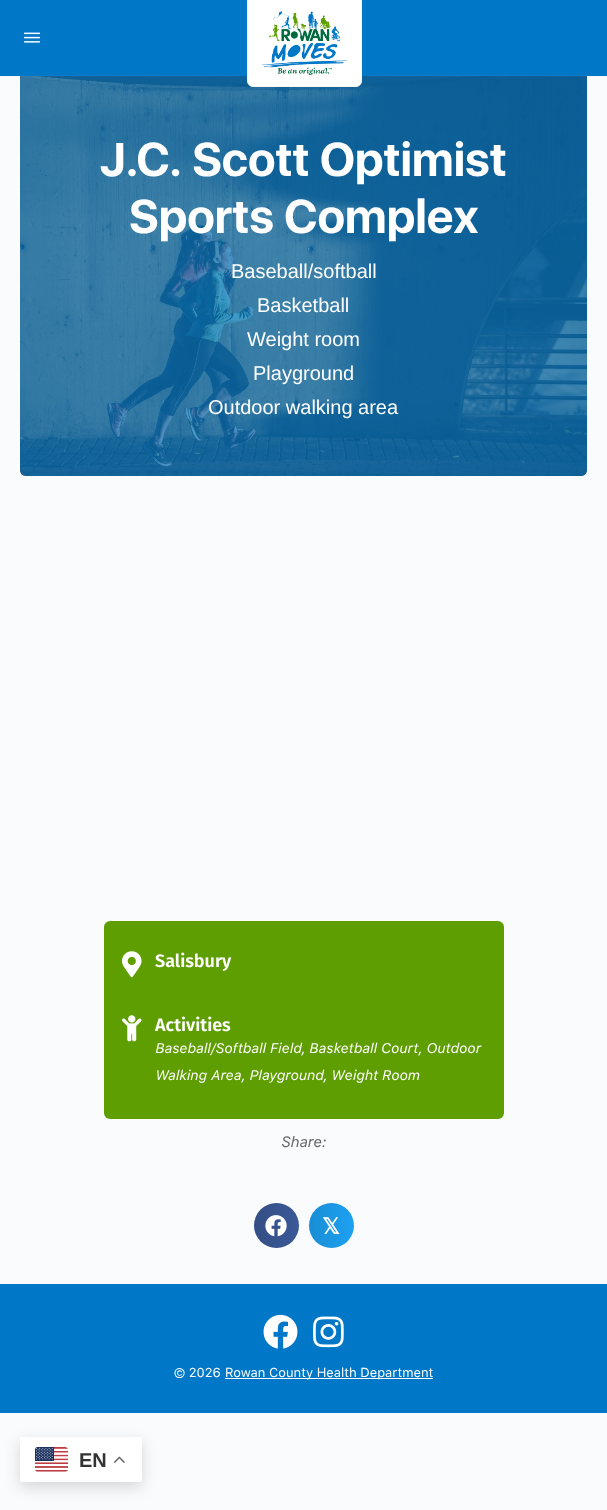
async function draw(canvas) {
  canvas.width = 607
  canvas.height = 1510
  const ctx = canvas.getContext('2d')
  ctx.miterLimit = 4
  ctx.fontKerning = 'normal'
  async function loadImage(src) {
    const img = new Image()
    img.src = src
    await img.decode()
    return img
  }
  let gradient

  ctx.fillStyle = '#fafbfd'
  ctx.fillRect(0, 0, 607, 1510)
  ctx.drawImage(await loadImage('image2.png'), 20, 76, 567, 400)
  ctx.fillStyle = '#0078c7b5'
  ctx.beginPath()
  ctx.roundRect(20, 76, 567, 400, [0, 0, 6, 6])
  ctx.fill()
  ctx.fillStyle = '#8b8d9d0d'
  ctx.fillRect(0, 76, 607, 1)
  ctx.fillStyle = '#0078c7'
  ctx.fillRect(0, 0, 607, 76)
  ctx.drawImage(await loadImage('image0.png'), 24, 32, 16, 11)
  ctx.fillStyle = '#fff'
  ctx.beginPath()
  ctx.moveTo(247.5, -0.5)
  ctx.lineTo(361.5, -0.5)
  ctx.lineTo(361.5, 81)
  ctx.bezierCurveTo(361.5, 84, 359, 86.5, 356, 86.5)
  ctx.lineTo(253, 86.5)
  ctx.bezierCurveTo(250, 86.5, 247.5, 84, 247.5, 81)
  ctx.closePath()
  ctx.fill()
  ctx.strokeStyle = '#f7f7f7'
  ctx.stroke()
  ctx.drawImage(await loadImage('image1.png'), 262, 11, 85, 65)
  ctx.font = 'bold 47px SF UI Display'
  ctx.fillText('J.C. Scott Optimist', 100, 176)
  ctx.fillText('Sports Complex', 129, 233)
  ctx.font = '20px Liberation Sans'
  ctx.fillText('Baseball/softball', 231, 278)
  ctx.fillText('Basketball', 257, 312)
  ctx.fillText('Weight room', 247, 346)
  ctx.fillText('Playground', 253, 380)
  ctx.fillText('Outdoor walking area', 208, 414)
  ctx.fillStyle = '#5e9e00'
  ctx.beginPath()
  ctx.roundRect(104, 921, 400, 198, 6)
  ctx.fill()
  ctx.drawImage(await loadImage('image3.png'), 122, 951, 20, 27)
  ctx.font = '600 18px Fira Sans'
  ctx.fillStyle = '#fff'
  ctx.fillText('Salisbury', 155, 967)
  ctx.drawImage(await loadImage('image4.png'), 122, 1015, 20, 27)
  ctx.fillText('Activities', 155, 1031)
  ctx.font = 'italic 14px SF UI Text'
  ctx.fillText('Baseball/Softball Field, Basketball Court, Outdoor', 155, 1053)
  ctx.fillText('Walking Area, Playground, Weight Room', 155, 1080)
  ctx.font = 'italic 15px SF UI Text'
  ctx.fillStyle = '#666'
  ctx.fillText('Share:', 281, 1147)
  ctx.fillStyle = '#3b5998'
  ctx.beginPath()
  ctx.arc(276.5, 1225.5, 22.5, 0, 2 * Math.PI)
  ctx.fill()
  gradient = ctx.createLinearGradient(254, 1226, 299, 1226)
  gradient.addColorStop(0, '#0000001f')
  gradient.addColorStop(1, '#00000000')
  ctx.fillStyle = gradient
  ctx.beginPath()
  ctx.arc(276.5, 1225.5, 22.5, 0, 2 * Math.PI)
  ctx.fill()
  ctx.drawImage(await loadImage('image5.png'), 265, 1215, 22, 22)
  ctx.fillStyle = '#1da1f2'
  ctx.beginPath()
  ctx.arc(331.5, 1225.5, 22.5, 0, 2 * Math.PI)
  ctx.fill()
  gradient = ctx.createLinearGradient(309, 1226, 354, 1226)
  gradient.addColorStop(0, '#0000001f')
  gradient.addColorStop(1, '#00000000')
  ctx.fillStyle = gradient
  ctx.beginPath()
  ctx.arc(331.5, 1225.5, 22.5, 0, 2 * Math.PI)
  ctx.fill()
  ctx.font = 'bold 22px DejaVu Sans'
  ctx.fillStyle = '#fff'
  ctx.fillText('𝕏', 322, 1234)
  ctx.fillStyle = '#0078c7'
  ctx.fillRect(0, 1284, 607, 129)
  ctx.drawImage(await loadImage('image6.png'), 263, 1314, 35, 35)
  ctx.drawImage(await loadImage('image7.png'), 313, 1316, 31, 32)
  ctx.font = '13px SF UI Text'
  ctx.fillStyle = '#fff'
  ctx.fillText('© 2026', 174, 1377)
  ctx.fillRect(225, 1378, 208, 1)
  ctx.fillText('Rowan County Health Department', 225, 1377)
  ctx.fillStyle = '#00000026'
  ctx.filter = 'blur(7.5px)'
  ctx.beginPath()
  ctx.roundRect(20, 1442, 122, 45, 2)
  ctx.fill()
  ctx.filter = 'none'
  ctx.fillStyle = '#fff'
  ctx.beginPath()
  ctx.roundRect(20, 1437, 122, 45, 2)
  ctx.fill()
  ctx.drawImage(await loadImage('image8.png'), 35, 1447, 33, 25)
  ctx.font = 'bold 20px Liberation Sans'
  ctx.fillStyle = '#333'
  ctx.fillText('EN', 79, 1467)
  ctx.drawImage(await loadImage('image9.png'), 114, 1456, 11, 7)
}

draw(document.querySelector('canvas'))
